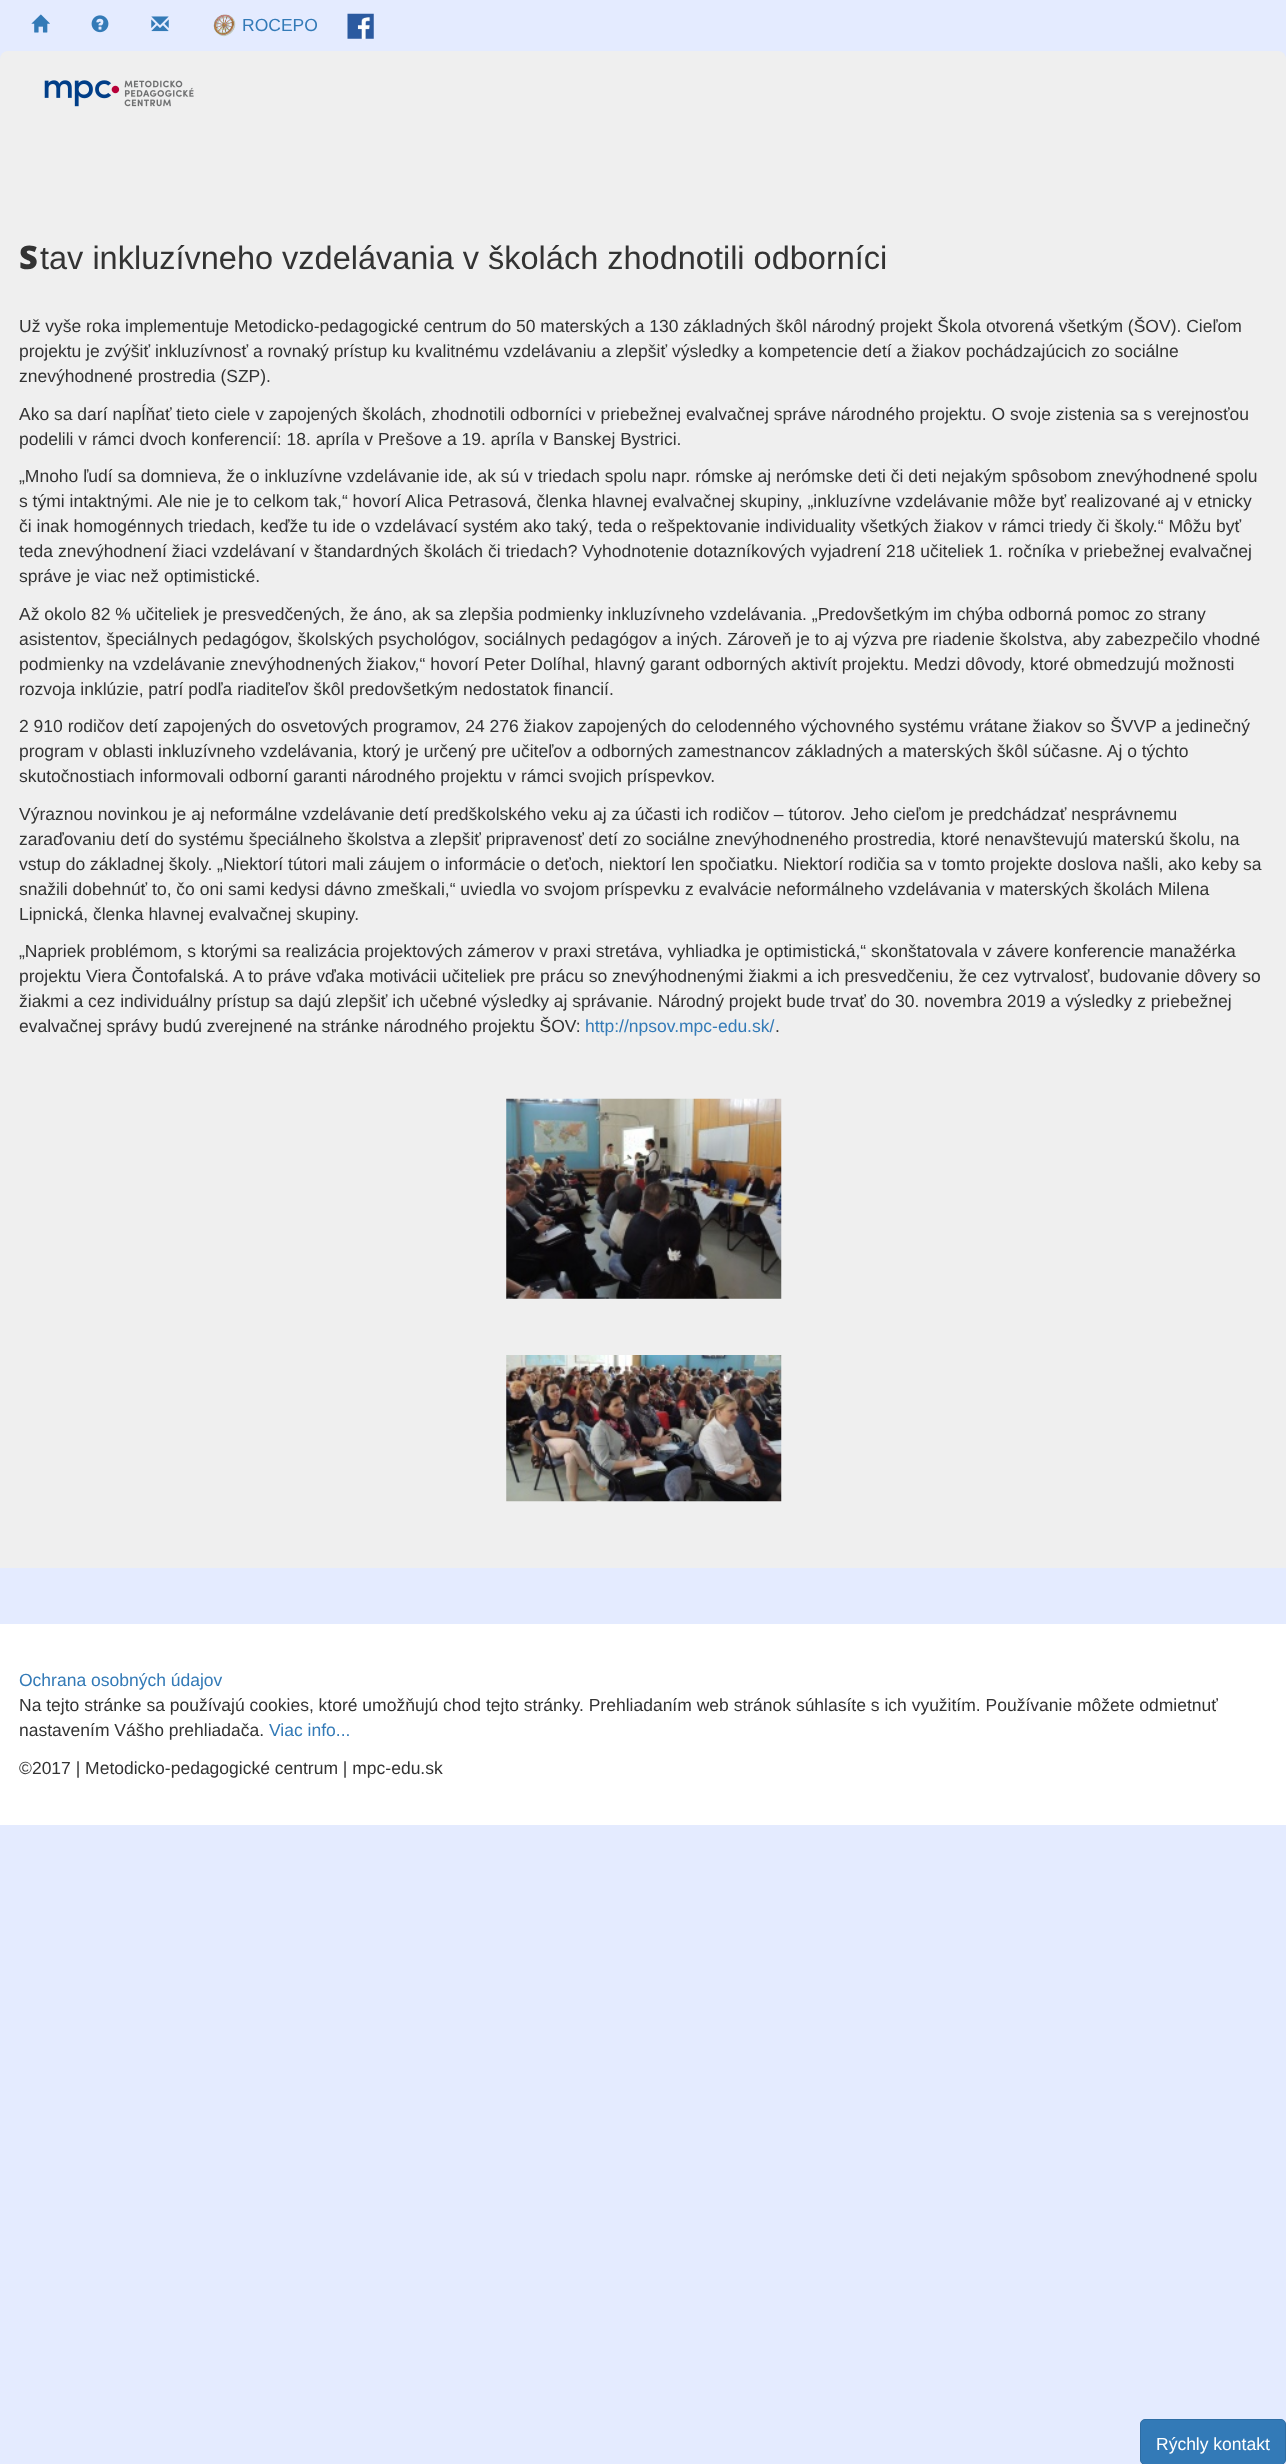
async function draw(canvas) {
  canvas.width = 1286
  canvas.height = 2464
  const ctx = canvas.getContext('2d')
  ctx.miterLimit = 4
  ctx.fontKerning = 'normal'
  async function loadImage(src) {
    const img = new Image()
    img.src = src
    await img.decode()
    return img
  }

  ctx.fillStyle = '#e4ebff'
  ctx.fillRect(0, 0, 1286, 2464)
  ctx.drawImage(await loadImage('image0.png'), 31, 14, 19, 19)
  ctx.drawImage(await loadImage('image1.png'), 91, 15, 18, 18)
  ctx.drawImage(await loadImage('image2.png'), 151, 16, 18, 16)
  ctx.drawImage(await loadImage('image3.png'), 213, 14, 23, 23)
  ctx.font = '17.5px Liberation Sans'
  ctx.fillStyle = '#337ab7'
  ctx.fillText('ROCEPO', 242, 31)
  ctx.drawImage(await loadImage('image4.png'), 347, 13, 27, 26)
  ctx.fillStyle = '#efefef'
  ctx.beginPath()
  ctx.roundRect(0, 51, 1286, 189, [8, 8, 0, 0])
  ctx.fill()
  ctx.drawImage(await loadImage('image5.png'), 44, 80, 150, 27)
  ctx.fillRect(0, 240, 1286, 1328)
  ctx.font = '900 32.5px Noto Sans'
  ctx.fillStyle = '#333'
  ctx.fillText('S', 19, 269)
  ctx.font = '32.5px Liberation Sans'
  ctx.fillText('tav inkluzívneho vzdelávania v školách zhodnotili odborníci', 40, 269)
  ctx.font = '17.5px Liberation Sans'
  ctx.fillText('Už vyše roka implementuje Metodicko-pedagogické centrum do 50 materských a 130 základných škôl národný projekt Škola otvorená všetkým (ŠOV). Cieľom', 19, 332)
  ctx.fillText('projektu je zvýšiť inkluzívnosť a rovnaký prístup ku kvalitnému vzdelávaniu a zlepšiť výsledky a kompetencie detí a žiakov pochádzajúcich zo sociálne', 19, 357)
  ctx.fillText('znevýhodnené prostredia (SZP).', 19, 382)
  ctx.fillText('Ako sa darí napĺňať tieto ciele v zapojených školách, zhodnotili odborníci v priebežnej evalvačnej správe národného projektu. O svoje zistenia sa s verejnosťou', 19, 420)
  ctx.fillText('podelili v rámci dvoch konferencií: 18. apríla v Prešove a 19. apríla v Banskej Bystrici.', 19, 445)
  ctx.fillText('„Mnoho ľudí sa domnieva, že o inkluzívne vzdelávanie ide, ak sú v triedach spolu napr. rómske aj nerómske deti či deti nejakým spôsobom znevýhodnené spolu', 19, 482)
  ctx.fillText('s tými intaktnými. Ale nie je to celkom tak,“ hovorí Alica Petrasová, členka hlavnej evalvačnej skupiny, „inkluzívne vzdelávanie môže byť realizované aj v etnicky', 19, 507)
  ctx.fillText('či inak homogénnych triedach, keďže tu ide o vzdelávací systém ako taký, teda o rešpektovanie individuality všetkých žiakov v rámci triedy či školy.“ Môžu byť', 19, 532)
  ctx.fillText('teda znevýhodnení žiaci vzdelávaní v štandardných školách či triedach? Vyhodnotenie dotazníkových vyjadrení 218 učiteliek 1. ročníka v priebežnej evalvačnej', 19, 557)
  ctx.fillText('správe je viac než optimistické.', 19, 582)
  ctx.fillText('Až okolo 82 % učiteliek je presvedčených, že áno, ak sa zlepšia podmienky inkluzívneho vzdelávania. „Predovšetkým im chýba odborná pomoc zo strany', 19, 620)
  ctx.fillText('asistentov, špeciálnych pedagógov, školských psychológov, sociálnych pedagógov a iných. Zároveň je to aj výzva pre riadenie školstva, aby zabezpečilo vhodné', 19, 645)
  ctx.fillText('podmienky na vzdelávanie znevýhodnených žiakov,“ hovorí Peter Dolíhal, hlavný garant odborných aktivít projektu. Medzi dôvody, ktoré obmedzujú možnosti', 19, 670)
  ctx.fillText('rozvoja inklúzie, patrí podľa riaditeľov škôl predovšetkým nedostatok financií.', 19, 695)
  ctx.fillText('2 910 rodičov detí zapojených do osvetových programov, 24 276 žiakov zapojených do celodenného výchovného systému vrátane žiakov so ŠVVP a jedinečný', 19, 732)
  ctx.fillText('program v oblasti inkluzívneho vzdelávania, ktorý je určený pre učiteľov a odborných zamestnancov základných a materských škôl súčasne. Aj o týchto', 19, 757)
  ctx.fillText('skutočnostiach informovali odborní garanti národného projektu v rámci svojich príspevkov.', 19, 782)
  ctx.fillText('Výraznou novinkou je aj neformálne vzdelávanie detí predškolského veku aj za účasti ich rodičov – tútorov. Jeho cieľom je predchádzať nesprávnemu', 19, 820)
  ctx.fillText('zaraďovaniu detí do systému špeciálneho školstva a zlepšiť pripravenosť detí zo sociálne znevýhodneného prostredia, ktoré nenavštevujú materskú školu, na', 19, 845)
  ctx.fillText('vstup do základnej školy. „Niektorí tútori mali záujem o informácie o deťoch, niektorí len spočiatku. Niektorí rodičia sa v tomto projekte doslova našli, ako keby sa', 19, 870)
  ctx.fillText('snažili dobehnúť to, čo oni sami kedysi dávno zmeškali,“ uviedla vo svojom príspevku z evalvácie neformálneho vzdelávania v materských školách Milena', 19, 895)
  ctx.fillText('Lipnická, členka hlavnej evalvačnej skupiny.', 19, 920)
  ctx.fillText('„Napriek problémom, s ktorými sa realizácia projektových zámerov v praxi stretáva, vyhliadka je optimistická,“ skonštatovala v závere konferencie manažérka', 19, 957)
  ctx.fillText('projektu Viera Čontofalská. A to práve vďaka motivácii učiteliek pre prácu so znevýhodnenými žiakmi a ich presvedčeniu, že cez vytrvalosť, budovanie dôvery so', 19, 982)
  ctx.fillText('žiakmi a cez individuálny prístup sa dajú zlepšiť ich učebné výsledky aj správanie. Národný projekt bude trvať do 30. novembra 2019 a výsledky z priebežnej', 19, 1007)
  ctx.fillText('evalvačnej správy budú zverejnené na stránke národného projektu ŠOV:', 19, 1032)
  ctx.fillStyle = '#337ab7'
  ctx.fillText('http://npsov.mpc-edu.sk/', 585, 1032)
  ctx.fillStyle = '#333'
  ctx.fillText('.', 775, 1032)
  ctx.drawImage(await loadImage('image6.png'), 506, 1098, 276, 201)
  ctx.drawImage(await loadImage('image7.png'), 506, 1355, 276, 147)
  ctx.fillStyle = '#337ab7'
  ctx.beginPath()
  ctx.roundRect(1140.5, 2419.5, 145, 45, 4.5)
  ctx.fill()
  ctx.strokeStyle = '#2e6da4'
  ctx.stroke()
  ctx.fillStyle = '#fff'
  ctx.fillText('Rýchly kontakt', 1156, 2450)
  ctx.fillRect(0, 1624, 1286, 201)
  ctx.fillStyle = '#337ab7'
  ctx.fillText('Ochrana osobných údajov', 19, 1686)
  ctx.fillStyle = '#333'
  ctx.fillText('Na tejto stránke sa používajú cookies, ktoré umožňujú chod tejto stránky. Prehliadaním web stránok súhlasíte s ich využitím. Používanie môžete odmietnuť', 19, 1711)
  ctx.fillText('nastavením Vášho prehliadača.', 19, 1736)
  ctx.fillStyle = '#337ab7'
  ctx.fillText('Viac info...', 269, 1736)
  ctx.fillStyle = '#333'
  ctx.fillText('©2017 | Metodicko-pedagogické centrum | mpc-edu.sk', 19, 1774)
}

draw(document.querySelector('canvas'))
